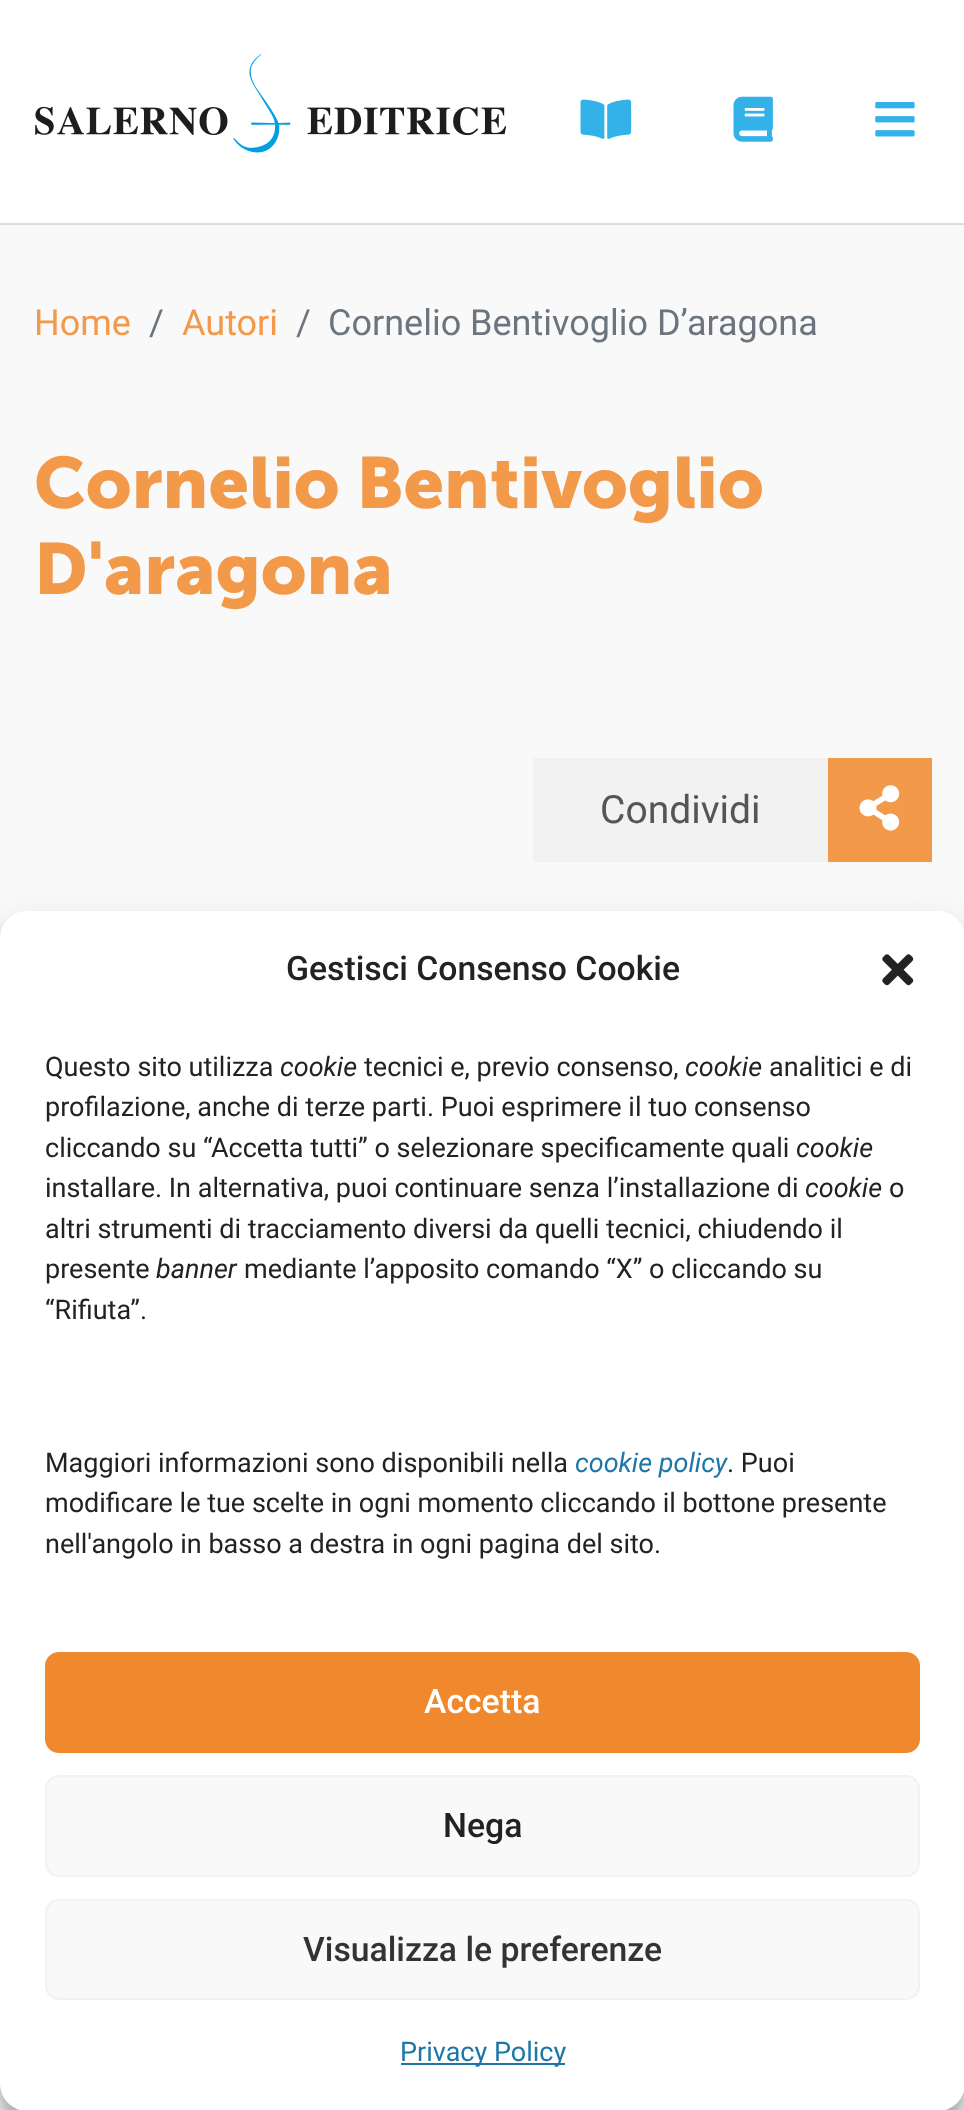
async function draw(canvas) {
  canvas.width = 964
  canvas.height = 2110
  const ctx = canvas.getContext('2d')
  ctx.miterLimit = 4
  ctx.fontKerning = 'normal'
  async function loadImage(src) {
    const img = new Image()
    img.src = src
    await img.decode()
    return img
  }

  ctx.fillStyle = '#f9f9f9'
  ctx.fillRect(0, 0, 964, 2110)
  ctx.fillStyle = '#fff'
  ctx.fillRect(0, 0, 964, 223)
  ctx.fillStyle = '#ddd'
  ctx.fillRect(0, 223, 964, 2)
  ctx.drawImage(await loadImage('image0.png'), 35, 54, 471, 99)
  ctx.drawImage(await loadImage('image1.png'), 580, 99, 52, 40)
  ctx.drawImage(await loadImage('image2.png'), 733, 96, 40, 46)
  ctx.drawImage(await loadImage('image3.png'), 875, 102, 40, 35)
  ctx.font = '36px Roboto'
  ctx.fillStyle = '#f2994a'
  ctx.fillText('Home', 34, 335)
  ctx.fillStyle = '#6c757d'
  ctx.fillText('/', 149, 335)
  ctx.fillStyle = '#f2994a'
  ctx.fillText('Autori', 182, 335)
  ctx.fillStyle = '#6c757d'
  ctx.fillText('/', 296, 335)
  ctx.fillText('Cornelio Bentivoglio D’aragona', 328, 335)
  ctx.font = 'bold 72px Museo Sans'
  ctx.fillStyle = '#f2994a'
  ctx.fillText('Cornelio Bentivoglio', 34, 508)
  ctx.fillText('D\'aragona', 34, 594)
  ctx.fillStyle = '#f2f2f2'
  ctx.fillRect(533, 758, 295, 104)
  ctx.font = '39px Roboto'
  ctx.fillStyle = '#555'
  ctx.fillText('Condividi', 600, 823)
  ctx.fillStyle = '#f2994a'
  ctx.fillRect(828, 758, 104, 104)
  ctx.drawImage(await loadImage('image4.png'), 859, 785, 41, 46)
  ctx.fillStyle = '#fff'
  ctx.fillRect(0, 2084, 964, 26)
  ctx.fillStyle = '#0000003b'
  ctx.filter = 'blur(7px)'
  ctx.beginPath()
  ctx.roundRect(0, 925, 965, 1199, 27)
  ctx.fill()
  ctx.filter = 'none'
  ctx.fillStyle = '#00000030'
  ctx.filter = 'blur(22.5px)'
  ctx.beginPath()
  ctx.roundRect(0, 934, 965, 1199, 27)
  ctx.fill()
  ctx.filter = 'none'
  ctx.fillStyle = '#fff'
  ctx.beginPath()
  ctx.roundRect(0, 911, 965, 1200, 27)
  ctx.fill()
  ctx.font = '500 33.75px Roboto'
  ctx.fillStyle = '#222'
  ctx.fillText('Gestisci Consenso Cookie', 286, 980)
  ctx.drawImage(await loadImage('image5.png'), 882, 954, 32, 32)
  ctx.font = '27px Roboto'
  ctx.fillText('Questo sito utilizza', 45, 1076)
  ctx.font = 'italic 27px Roboto'
  ctx.fillText('cookie', 280, 1076)
  ctx.font = '27px Roboto'
  ctx.fillText('tecnici e, previo consenso,', 364, 1076)
  ctx.font = 'italic 27px Roboto'
  ctx.fillText('cookie', 685, 1076)
  ctx.font = '27px Roboto'
  ctx.fillText('analitici e di', 769, 1076)
  ctx.fillText('profilazione, anche di terze parti. Puoi esprimere il tuo consenso', 45, 1116)
  ctx.fillText('cliccando su “Accetta tutti” o selezionare specificamente quali', 45, 1157)
  ctx.font = 'italic 27px Roboto'
  ctx.fillText('cookie', 796, 1157)
  ctx.font = '27px Roboto'
  ctx.fillText('installare. In alternativa, puoi continuare senza l’installazione di', 45, 1197)
  ctx.font = 'italic 27px Roboto'
  ctx.fillText('cookie', 805, 1197)
  ctx.font = '27px Roboto'
  ctx.fillText('o', 889, 1197)
  ctx.fillText('altri strumenti di tracciamento diversi da quelli tecnici, chiudendo il', 45, 1238)
  ctx.fillText('presente', 45, 1278)
  ctx.font = 'italic 27px Roboto'
  ctx.fillText('banner', 156, 1278)
  ctx.font = '27px Roboto'
  ctx.fillText('mediante l’apposito comando “X” o cliccando su', 244, 1278)
  ctx.fillText('“Rifiuta”.', 45, 1319)
  ctx.fillText('Maggiori informazioni sono disponibili nella', 45, 1472)
  ctx.font = 'italic 27px Roboto'
  ctx.fillStyle = '#1e76a8'
  ctx.fillText('cookie policy', 575, 1472)
  ctx.font = '27px Roboto'
  ctx.fillStyle = '#222'
  ctx.fillText('. Puoi', 727, 1472)
  ctx.fillText('modificare le tue scelte in ogni momento cliccando il bottone presente', 45, 1512)
  ctx.fillText('nell\'angolo in basso a destra in ogni pagina del sito.', 45, 1553)
  ctx.fillStyle = '#f0892d'
  ctx.beginPath()
  ctx.roundRect(46, 1653, 873, 99, 13)
  ctx.fill()
  ctx.strokeStyle = '#f0892d'
  ctx.lineWidth = 2
  ctx.stroke()
  ctx.font = '500 33.75px Roboto'
  ctx.fillStyle = '#fff'
  ctx.fillText('Accetta', 424, 1713)
  ctx.fillStyle = '#f9f9f9'
  ctx.beginPath()
  ctx.roundRect(46, 1776, 873, 100, 13)
  ctx.fill()
  ctx.strokeStyle = '#f2f2f2'
  ctx.stroke()
  ctx.fillStyle = '#222'
  ctx.fillText('Nega', 443, 1837)
  ctx.fillStyle = '#f9f9f9'
  ctx.beginPath()
  ctx.roundRect(46, 1900, 873, 99, 13)
  ctx.fill()
  ctx.stroke()
  ctx.fillStyle = '#333'
  ctx.fillText('Visualizza le preferenze', 303, 1961)
  ctx.fillStyle = '#1e76a8'
  ctx.fillRect(401, 2063, 164, 2)
  ctx.font = '27px Roboto'
  ctx.fillText('Privacy Policy', 400, 2061)
}

draw(document.querySelector('canvas'))
